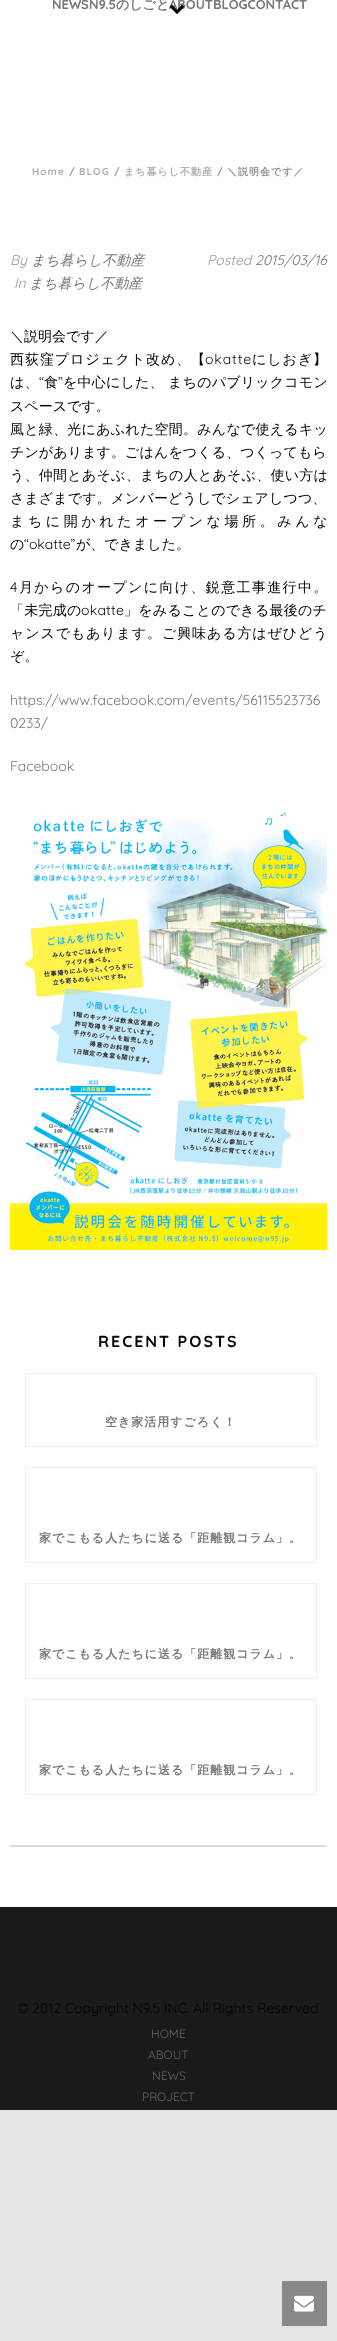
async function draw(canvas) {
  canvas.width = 337
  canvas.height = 2341
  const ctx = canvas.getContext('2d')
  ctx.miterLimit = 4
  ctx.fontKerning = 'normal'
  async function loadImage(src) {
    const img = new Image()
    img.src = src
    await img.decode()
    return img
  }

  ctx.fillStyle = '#e5e5e5'
  ctx.fillRect(0, 0, 337, 2341)
  ctx.fillStyle = '#fff'
  ctx.fillRect(0, 0, 337, 1907)
  ctx.font = 'bold 13px Quicksand'
  ctx.fillStyle = '#777'
  ctx.fillText('NEWSN9.5', 52, 9)
  ctx.font = 'bold 13px WenQuanYi Zen Hei'
  ctx.fillText('のしごと', 116, 9)
  ctx.font = 'bold 13px Quicksand'
  ctx.fillText('ABOUTBLOGCONTACT', 169, 9)
  ctx.drawImage(await loadImage('image0.png'), 169, 4, 16, 10)
  ctx.letterSpacing = '1px'
  ctx.font = 'bold 10px Quicksand'
  ctx.fillStyle = '#afafaf'
  ctx.fillText('Home', 32, 175)
  ctx.fillStyle = '#919191'
  ctx.fillText('/', 69, 175)
  ctx.fillStyle = '#afafaf'
  ctx.fillText('BLOG', 79, 175)
  ctx.fillStyle = '#919191'
  ctx.fillText('/', 114, 175)
  ctx.font = 'bold 10px WenQuanYi Zen Hei'
  ctx.fillStyle = '#afafaf'
  ctx.fillText('まち暮らし不動産', 124, 175)
  ctx.font = 'bold 10px Quicksand'
  ctx.fillStyle = '#919191'
  ctx.fillText('/', 217, 175)
  ctx.font = 'bold 10px WenQuanYi Zen Hei'
  ctx.fillText('＼説明会です／', 227, 175)
  ctx.letterSpacing = '0px'
  ctx.font = 'italic 14px Quicksand'
  ctx.fillStyle = '#999'
  ctx.fillText('By', 10, 265)
  ctx.font = 'italic 500 14px WenQuanYi Zen Hei'
  ctx.fillStyle = '#777'
  ctx.fillText('まち暮らし不動産', 31, 265)
  ctx.font = 'italic 14px Quicksand'
  ctx.fillStyle = '#999'
  ctx.fillText('Posted', 207, 265)
  ctx.fillStyle = '#777'
  ctx.fillText('2015/03/16', 255, 265)
  ctx.fillStyle = '#999'
  ctx.fillText('In', 14, 288)
  ctx.font = 'italic 500 14px WenQuanYi Zen Hei'
  ctx.fillStyle = '#777'
  ctx.fillText('まち暮らし不動産', 29, 288)
  ctx.font = '500 14px WenQuanYi Zen Hei'
  ctx.fillStyle = '#050505'
  ctx.fillText('＼説明会です／', 10, 341)
  ctx.letterSpacing = '0.9px'
  ctx.fillText('西荻窪プロジェクト改め、【', 10, 364)
  ctx.font = '14px Quicksand'
  ctx.fillText('okatte', 205, 364)
  ctx.font = '500 14px WenQuanYi Zen Hei'
  ctx.fillText('にしおぎ】', 252, 364)
  ctx.letterSpacing = '0.2px'
  ctx.fillText('は、', 10, 387)
  ctx.font = '14px Quicksand'
  ctx.fillText('“', 39, 387)
  ctx.font = '500 14px WenQuanYi Zen Hei'
  ctx.fillText('食', 44, 387)
  ctx.font = '14px Quicksand'
  ctx.fillText('”', 58, 387)
  ctx.font = '500 14px WenQuanYi Zen Hei'
  ctx.fillText('を中心にした、 まちのパブリックコモン', 63, 387)
  ctx.letterSpacing = '0px'
  ctx.fillText('スペースです。', 10, 411)
  ctx.letterSpacing = '0.25px'
  ctx.fillText('風と緑、光にあふれた空間。みんなで使えるキッ', 10, 434)
  ctx.letterSpacing = '0.1px'
  ctx.fillText('チンがあります。ごはんをつくる、つくってもら', 10, 457)
  ctx.letterSpacing = '0.25px'
  ctx.fillText('う、仲間とあそぶ、まちの人とあそぶ、使い方は', 10, 480)
  ctx.letterSpacing = '0.1px'
  ctx.fillText('さまざまです。メンバーどうしでシェアしつつ、', 10, 503)
  ctx.letterSpacing = '3.6px'
  ctx.fillText('まちに開かれたオープンな場所。みんな', 10, 526)
  ctx.letterSpacing = '0px'
  ctx.fillText('の', 10, 549)
  ctx.font = '14px Quicksand'
  ctx.fillText('“okatte”', 24, 549)
  ctx.font = '500 14px WenQuanYi Zen Hei'
  ctx.fillText('が、できました。', 76, 549)
  ctx.letterSpacing = '1.35px'
  ctx.font = '14px Quicksand'
  ctx.fillText('4', 10, 592)
  ctx.font = '500 14px WenQuanYi Zen Hei'
  ctx.fillText('月からのオープンに向け、鋭意工事進行中。', 19, 592)
  ctx.letterSpacing = '0.25px'
  ctx.fillText('「未完成の', 10, 615)
  ctx.font = '14px Quicksand'
  ctx.fillText('okatte', 81, 615)
  ctx.font = '500 14px WenQuanYi Zen Hei'
  ctx.fillText('」をみることのできる最後のチ', 124, 615)
  ctx.letterSpacing = '0.9px'
  ctx.fillText('ャンスでもあります。ご興味ある方はぜひどう', 10, 638)
  ctx.letterSpacing = '0px'
  ctx.fillText('ぞ。', 10, 661)
  ctx.font = '14px Quicksand'
  ctx.fillStyle = '#777'
  ctx.fillText('https://www.facebook.com/events/56115523736', 10, 705)
  ctx.fillText('0233/', 10, 728)
  ctx.fillText('Facebook', 10, 771)
  ctx.drawImage(await loadImage('image1.png'), 10, 812, 317, 438)
  ctx.fillStyle = '#ddd'
  ctx.fillRect(10, 1845, 317, 2)
  ctx.letterSpacing = '2px'
  ctx.font = 'bold 16px Quicksand'
  ctx.fillStyle = '#050505'
  ctx.fillText('RECENT POSTS', 98, 1347)
  ctx.strokeStyle = '#efefef'
  ctx.strokeRect(25.5, 1373.5, 291, 73)
  ctx.letterSpacing = '1px'
  ctx.font = 'bold 12px WenQuanYi Zen Hei'
  ctx.fillStyle = '#777'
  ctx.fillText('空き家活用すごろく！', 105, 1426)
  ctx.strokeRect(25.5, 1467.5, 291, 95)
  ctx.fillText('家でこもる人たちに送る「距離観コラム」。', 39, 1542)
  ctx.strokeRect(25.5, 1583.5, 291, 95)
  ctx.fillText('家でこもる人たちに送る「距離観コラム」。', 39, 1658)
  ctx.strokeRect(25.5, 1699.5, 291, 95)
  ctx.fillText('家でこもる人たちに送る「距離観コラム」。', 39, 1774)
  ctx.fillStyle = '#1a1a1a'
  ctx.fillRect(0, 1907, 337, 203)
  ctx.letterSpacing = '0px'
  ctx.font = '14px Quicksand'
  ctx.fillStyle = '#050505'
  ctx.fillText('© 2012 Copyright N9.5 INC. All Rights Reserved.', 17, 2013)
  ctx.font = '12px Quicksand'
  ctx.fillStyle = '#646464'
  ctx.fillText('HOME', 151, 2038)
  ctx.fillText('ABOUT', 148, 2059)
  ctx.fillText('NEWS', 152, 2080)
  ctx.fillText('PROJECT', 142, 2101)
  ctx.fillStyle = '#898989'
  ctx.fillRect(282, 2281, 45, 45)
  ctx.drawImage(await loadImage('image2.png'), 294, 2295, 20, 17)
}

draw(document.querySelector('canvas'))
